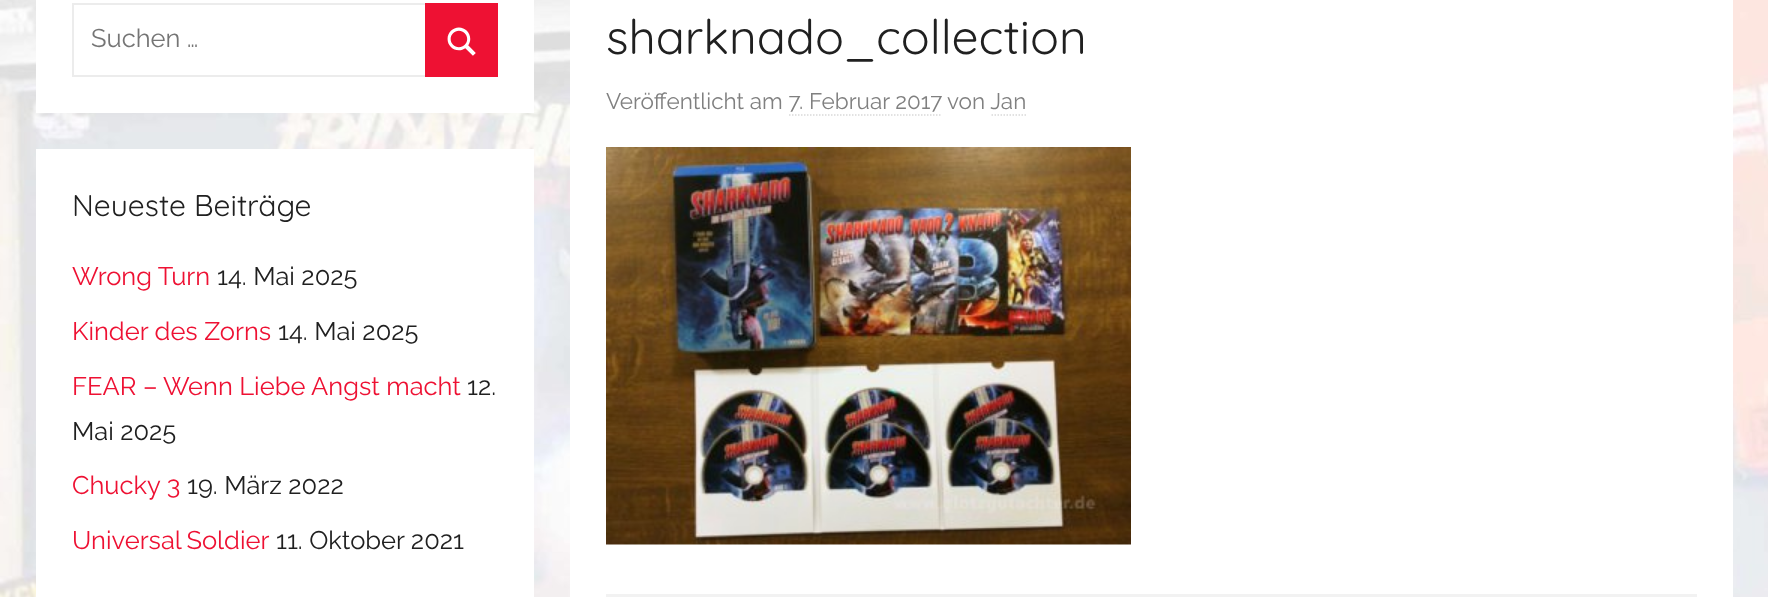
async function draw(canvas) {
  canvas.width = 1768
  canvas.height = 597
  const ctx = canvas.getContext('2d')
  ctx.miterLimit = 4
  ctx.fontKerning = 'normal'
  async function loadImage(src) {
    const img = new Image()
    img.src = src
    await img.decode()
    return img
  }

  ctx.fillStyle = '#fff'
  ctx.fillRect(0, 0, 1768, 597)
  ctx.drawImage(await loadImage('image0.png'), 0, 0, 1768, 597)
  ctx.fillRect(36, 0, 498, 113)
  ctx.strokeStyle = '#ececec'
  ctx.lineWidth = 2
  ctx.strokeRect(73, 4, 424, 72)
  ctx.font = '25.5px Raleway'
  ctx.fillStyle = '#757575'
  ctx.fillText('Suchen …', 91, 47)
  ctx.fillStyle = '#e13'
  ctx.fillRect(425, 3, 73, 74)
  ctx.drawImage(await loadImage('image1.png'), 447, 27, 29, 29)
  ctx.fillStyle = '#fff'
  ctx.fillRect(36, 149, 498, 448)
  ctx.font = '30px Quicksand'
  ctx.fillStyle = '#202020'
  ctx.fillText('Neueste Beiträge', 72, 216)
  ctx.font = '25.5px Raleway'
  ctx.fillStyle = '#e13'
  ctx.fillText('Wrong Turn', 72, 285)
  ctx.fillStyle = '#202020'
  ctx.fillText('14. Mai 2025', 217, 285)
  ctx.fillStyle = '#e13'
  ctx.fillText('Kinder des Zorns', 72, 340)
  ctx.fillStyle = '#202020'
  ctx.fillText('14. Mai 2025', 278, 340)
  ctx.fillStyle = '#e13'
  ctx.fillText('FEAR – Wenn Liebe Angst macht', 72, 395)
  ctx.fillStyle = '#202020'
  ctx.fillText('12.', 467, 395)
  ctx.fillText('Mai 2025', 72, 440)
  ctx.fillStyle = '#e13'
  ctx.fillText('Chucky 3', 72, 494)
  ctx.fillStyle = '#202020'
  ctx.fillText('19. März 2022', 187, 494)
  ctx.wordSpacing = '-1px'
  ctx.fillStyle = '#e13'
  ctx.fillText('Universal Soldier', 72, 549)
  ctx.wordSpacing = '0px'
  ctx.fillStyle = '#202020'
  ctx.fillText('11. Oktober 2021', 276, 549)
  ctx.fillStyle = '#fff'
  ctx.fillRect(570, 0, 1163, 597)
  ctx.font = '48px Quicksand'
  ctx.fillStyle = '#202020'
  ctx.fillText('sharknado_collection', 606, 54)
  ctx.font = '22.5px Raleway'
  ctx.fillStyle = '#808080'
  ctx.fillText('Veröffentlicht am 7. Februar 2017', 606, 109)
  ctx.beginPath()
  ctx.moveTo(789, 115)
  ctx.lineTo(942, 115)
  ctx.strokeStyle = '#d9d9d9'
  ctx.lineWidth = 1.5
  ctx.setLineDash([1.5, 1.5])
  ctx.stroke()
  ctx.fillText('von Jan', 947, 109)
  ctx.beginPath()
  ctx.moveTo(991.5, 115)
  ctx.lineTo(1027.5, 115)
  ctx.stroke()
  ctx.drawImage(await loadImage('image2.png'), 606, 147, 525, 398)
  ctx.fillStyle = '#f2f2f2'
  ctx.fillRect(606, 594, 1091, 3)
}

draw(document.querySelector('canvas'))
